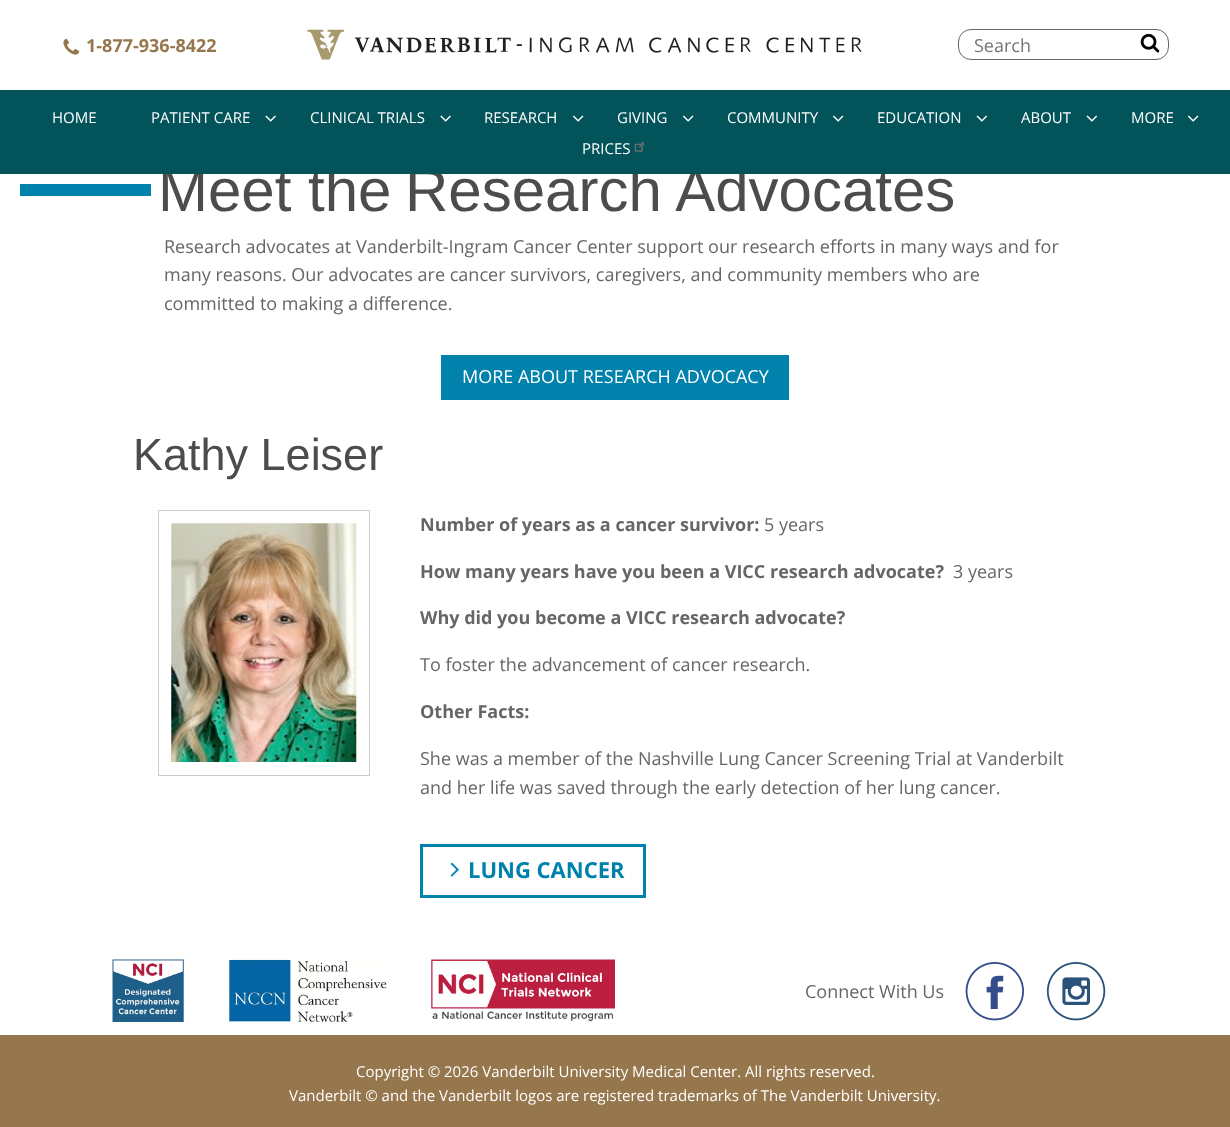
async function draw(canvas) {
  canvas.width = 1230
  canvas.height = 1127
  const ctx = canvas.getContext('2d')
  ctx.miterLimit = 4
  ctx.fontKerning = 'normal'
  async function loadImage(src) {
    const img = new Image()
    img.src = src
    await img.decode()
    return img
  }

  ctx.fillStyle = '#fff'
  ctx.fillRect(0, 0, 1230, 1127)
  ctx.drawImage(await loadImage('image0.png'), 63, 38, 17, 17)
  ctx.font = 'bold 18px Open Sans'
  ctx.fillStyle = '#96774d'
  ctx.fillText('1-877-936-8422', 86, 52)
  ctx.drawImage(await loadImage('image1.png'), 307, 29, 555, 31)
  ctx.beginPath()
  ctx.roundRect(958.5, 29.5, 210, 30, 12.5)
  ctx.strokeStyle = '#666'
  ctx.stroke()
  ctx.font = '18px Open Sans'
  ctx.fillStyle = '#757575'
  ctx.fillText('Search', 974, 52)
  ctx.drawImage(await loadImage('image2.png'), 1140, 33, 20, 20)
  ctx.font = '60px Liberation Sans'
  ctx.fillStyle = '#4c4c4c'
  ctx.fillText('Meet the', 158, 211)
  ctx.fillText('Research Advocates', 405, 211)
  ctx.fillStyle = '#02535a'
  ctx.fillRect(0, 90, 1230, 84)
  ctx.font = '15px Open Sans'
  ctx.fillStyle = '#fff'
  ctx.fillText('HOME', 52, 123)
  ctx.fillText('PATIENT CARE', 151, 123)
  ctx.drawImage(await loadImage('image3.png'), 265, 115, 11, 7)
  ctx.fillText('CLINICAL TRIALS', 310, 123)
  ctx.drawImage(await loadImage('image3.png'), 440, 115, 11, 7)
  ctx.fillText('RESEARCH', 484, 123)
  ctx.drawImage(await loadImage('image4.png'), 572, 115, 12, 7)
  ctx.fillText('GIVING', 617, 123)
  ctx.drawImage(await loadImage('image4.png'), 682, 115, 12, 7)
  ctx.fillText('COMMUNITY', 727, 123)
  ctx.drawImage(await loadImage('image4.png'), 832, 115, 12, 7)
  ctx.fillText('EDUCATION', 877, 123)
  ctx.drawImage(await loadImage('image5.png'), 976, 115, 12, 7)
  ctx.fillText('ABOUT', 1021, 123)
  ctx.drawImage(await loadImage('image5.png'), 1086, 115, 12, 7)
  ctx.fillText('MORE', 1131, 123)
  ctx.drawImage(await loadImage('image4.png'), 1187, 115, 12, 7)
  ctx.fillText('PRICES', 582, 154)
  ctx.drawImage(await loadImage('image6.png'), 634, 142, 10, 10)
  ctx.fillStyle = '#0182ad'
  ctx.fillRect(20, 184, 131, 12)
  ctx.font = '18px Open Sans'
  ctx.fillStyle = '#666'
  ctx.fillText('Research advocates at Vanderbilt-Ingram Cancer Center support our research efforts in many ways and for', 164, 253)
  ctx.fillText('many reasons. Our advocates are cancer survivors, caregivers, and community members who are', 164, 281)
  ctx.fillText('committed to making a difference.', 164, 310)
  ctx.fillStyle = '#0182ad'
  ctx.fillRect(441, 355, 348, 45)
  ctx.fillStyle = '#fff'
  ctx.fillText('MORE ABOUT RESEARCH ADVOCACY', 462, 383)
  ctx.font = '45px Liberation Sans'
  ctx.fillStyle = '#4c4c4c'
  ctx.fillText('Kathy Leiser', 133, 470)
  ctx.strokeStyle = '#ccc'
  ctx.strokeRect(158.5, 510.5, 211, 265)
  ctx.drawImage(await loadImage('image7.png'), 171, 523, 186, 239)
  ctx.font = 'bold 18px Open Sans'
  ctx.fillStyle = '#666'
  ctx.fillText('Number of years as a cancer survivor:', 420, 531)
  ctx.font = '18px Open Sans'
  ctx.fillText('5 years', 764, 531)
  ctx.font = 'bold 18px Open Sans'
  ctx.fillText('How many years have you been a VICC research advocate?', 420, 578)
  ctx.font = '18px Open Sans'
  ctx.fillText('3 years', 953, 578)
  ctx.font = 'bold 18px Open Sans'
  ctx.fillText('Why did you become a VICC research advocate?', 420, 624)
  ctx.font = '18px Open Sans'
  ctx.fillText('To foster the advancement of cancer research.', 420, 671)
  ctx.font = 'bold 18px Open Sans'
  ctx.fillText('Other Facts:', 420, 718)
  ctx.font = '18px Open Sans'
  ctx.fillText('She was a member of the Nashville Lung Cancer Screening Trial at Vanderbilt', 420, 765)
  ctx.fillText('and her life was saved through the early detection of her lung cancer.', 420, 794)
  ctx.strokeStyle = '#0182ad'
  ctx.lineWidth = 3
  ctx.strokeRect(421.5, 845.5, 223, 51)
  ctx.drawImage(await loadImage('image8.png'), 450, 862, 9, 15)
  ctx.font = 'bold 22px Open Sans'
  ctx.fillStyle = '#0182ad'
  ctx.fillText('LUNG CANCER', 468, 878)
  ctx.drawImage(await loadImage('image9.png'), 112, 959, 72, 63)
  ctx.drawImage(await loadImage('image10.png'), 228, 959, 159, 63)
  ctx.drawImage(await loadImage('image11.png'), 431, 959, 184, 63)
  ctx.font = '18px Open Sans'
  ctx.fillStyle = '#666'
  ctx.fillText('Connect With Us', 805, 998)
  ctx.drawImage(await loadImage('image12.png'), 965, 962, 59, 59)
  ctx.drawImage(await loadImage('image13.png'), 1046, 962, 60, 59)
  ctx.fillStyle = '#96774d'
  ctx.fillRect(0, 1035, 1230, 92)
  ctx.font = '15px Open Sans'
  ctx.fillStyle = '#fff'
  ctx.fillText('Copyright © 2026 Vanderbilt University Medical Center. All rights reserved.', 356, 1077)
  ctx.fillText('Vanderbilt © and the Vanderbilt logos are registered trademarks of The Vanderbilt University.', 289, 1101)
}

draw(document.querySelector('canvas'))
